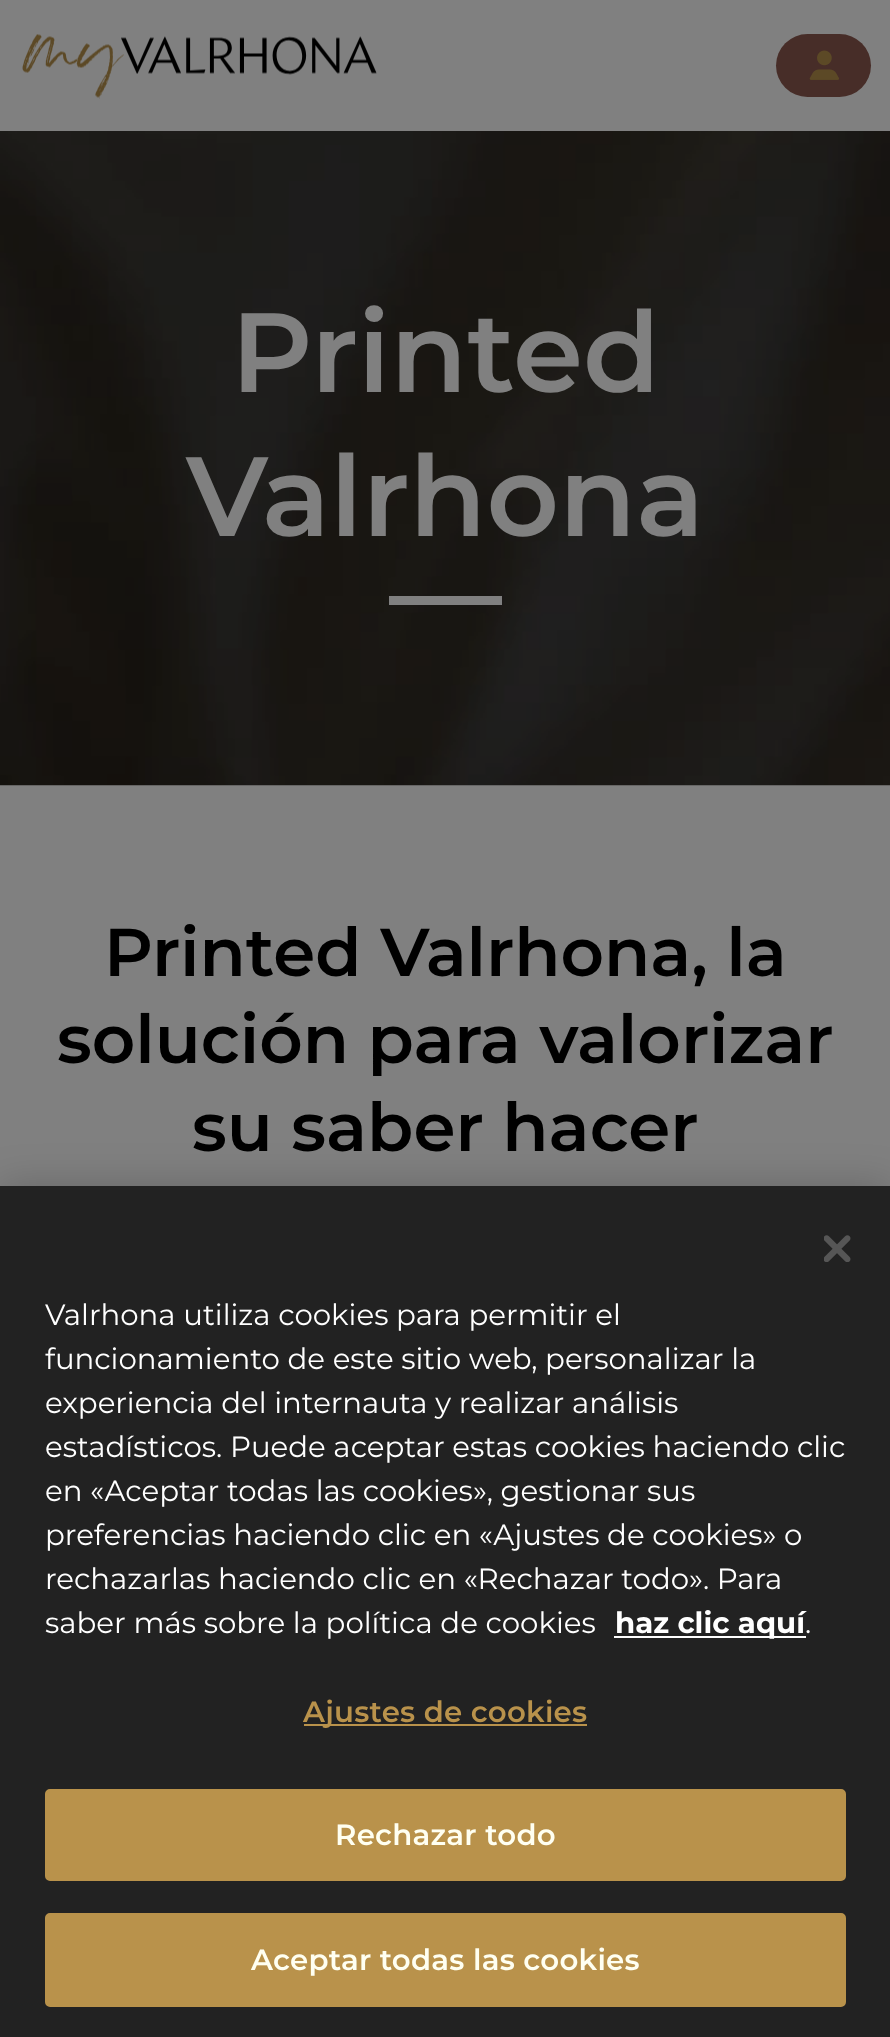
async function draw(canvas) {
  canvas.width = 890
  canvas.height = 2037
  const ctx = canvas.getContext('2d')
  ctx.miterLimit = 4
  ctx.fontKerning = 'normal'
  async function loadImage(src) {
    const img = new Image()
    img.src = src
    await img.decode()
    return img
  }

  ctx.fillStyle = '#808080'
  ctx.fillRect(0, 0, 890, 2037)
  ctx.drawImage(await loadImage('image0.png'), 22, 34, 355, 65)
  ctx.fillStyle = '#472d28'
  ctx.beginPath()
  ctx.roundRect(776, 34, 95, 63, 31.5)
  ctx.fill()
  ctx.drawImage(await loadImage('image1.png'), 809, 50, 30, 30)
  ctx.drawImage(await loadImage('image2.png'), 0, 131, 890, 655)
  ctx.font = '600 112.5px Montserrat'
  ctx.fillStyle = '#808080'
  ctx.fillText('Printed', 231, 392)
  ctx.fillText('Valrhona', 186, 536)
  ctx.fillRect(389, 596, 113, 9)
  ctx.font = '600 67.5px Montserrat'
  ctx.fillStyle = '#000'
  ctx.fillText('Printed Valrhona, la', 104, 976)
  ctx.fillText('solución para valorizar', 57, 1063)
  ctx.fillText('su saber hacer', 192, 1151)
  ctx.fillStyle = '#00000033'
  ctx.filter = 'blur(20px)'
  ctx.beginPath()
  ctx.rect(0, 1186, 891, 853)
  ctx.fill()
  ctx.filter = 'none'
  ctx.fillStyle = '#222'
  ctx.fillRect(0, 1186, 890, 851)
  ctx.drawImage(await loadImage('image3.png'), 824, 1235, 27, 27)
  ctx.font = '29.25px Montserrat'
  ctx.fillStyle = '#fff'
  ctx.fillText('Valrhona utiliza cookies para permitir el', 45, 1325)
  ctx.fillText('funcionamiento de este sitio web, personalizar la', 45, 1369)
  ctx.fillText('experiencia del internauta y realizar análisis', 45, 1413)
  ctx.fillText('estadísticos. Puede aceptar estas cookies haciendo clic', 45, 1457)
  ctx.fillText('en «Aceptar todas las cookies», gestionar sus', 45, 1501)
  ctx.fillText('preferencias haciendo clic en «Ajustes de cookies» o', 45, 1545)
  ctx.fillText('rechazarlas haciendo clic en «Rechazar todo». Para', 45, 1589)
  ctx.fillText('saber más sobre la política de cookies', 45, 1633)
  ctx.fillRect(614, 1636, 192, 2)
  ctx.font = 'bold 29.25px Montserrat'
  ctx.fillText('haz clic aquí', 615, 1633)
  ctx.font = '29.25px Montserrat'
  ctx.fillText('.', 805, 1633)
  ctx.fillStyle = '#b9924b'
  ctx.fillRect(304, 1724, 283, 2)
  ctx.letterSpacing = '0.25px'
  ctx.font = '600 29.25px Montserrat'
  ctx.fillText('Ajustes de cookies', 303, 1722)
  ctx.beginPath()
  ctx.roundRect(46, 1790, 799, 90, 4)
  ctx.fill()
  ctx.strokeStyle = '#b9924b'
  ctx.lineWidth = 2
  ctx.stroke()
  ctx.fillStyle = '#fffff1'
  ctx.fillText('Rechazar todo', 335, 1845)
  ctx.fillStyle = '#b9924b'
  ctx.beginPath()
  ctx.roundRect(46, 1914, 799, 92, 4)
  ctx.fill()
  ctx.stroke()
  ctx.fillStyle = '#fffff1'
  ctx.fillText('Aceptar todas las cookies', 251, 1970)
}

draw(document.querySelector('canvas'))
